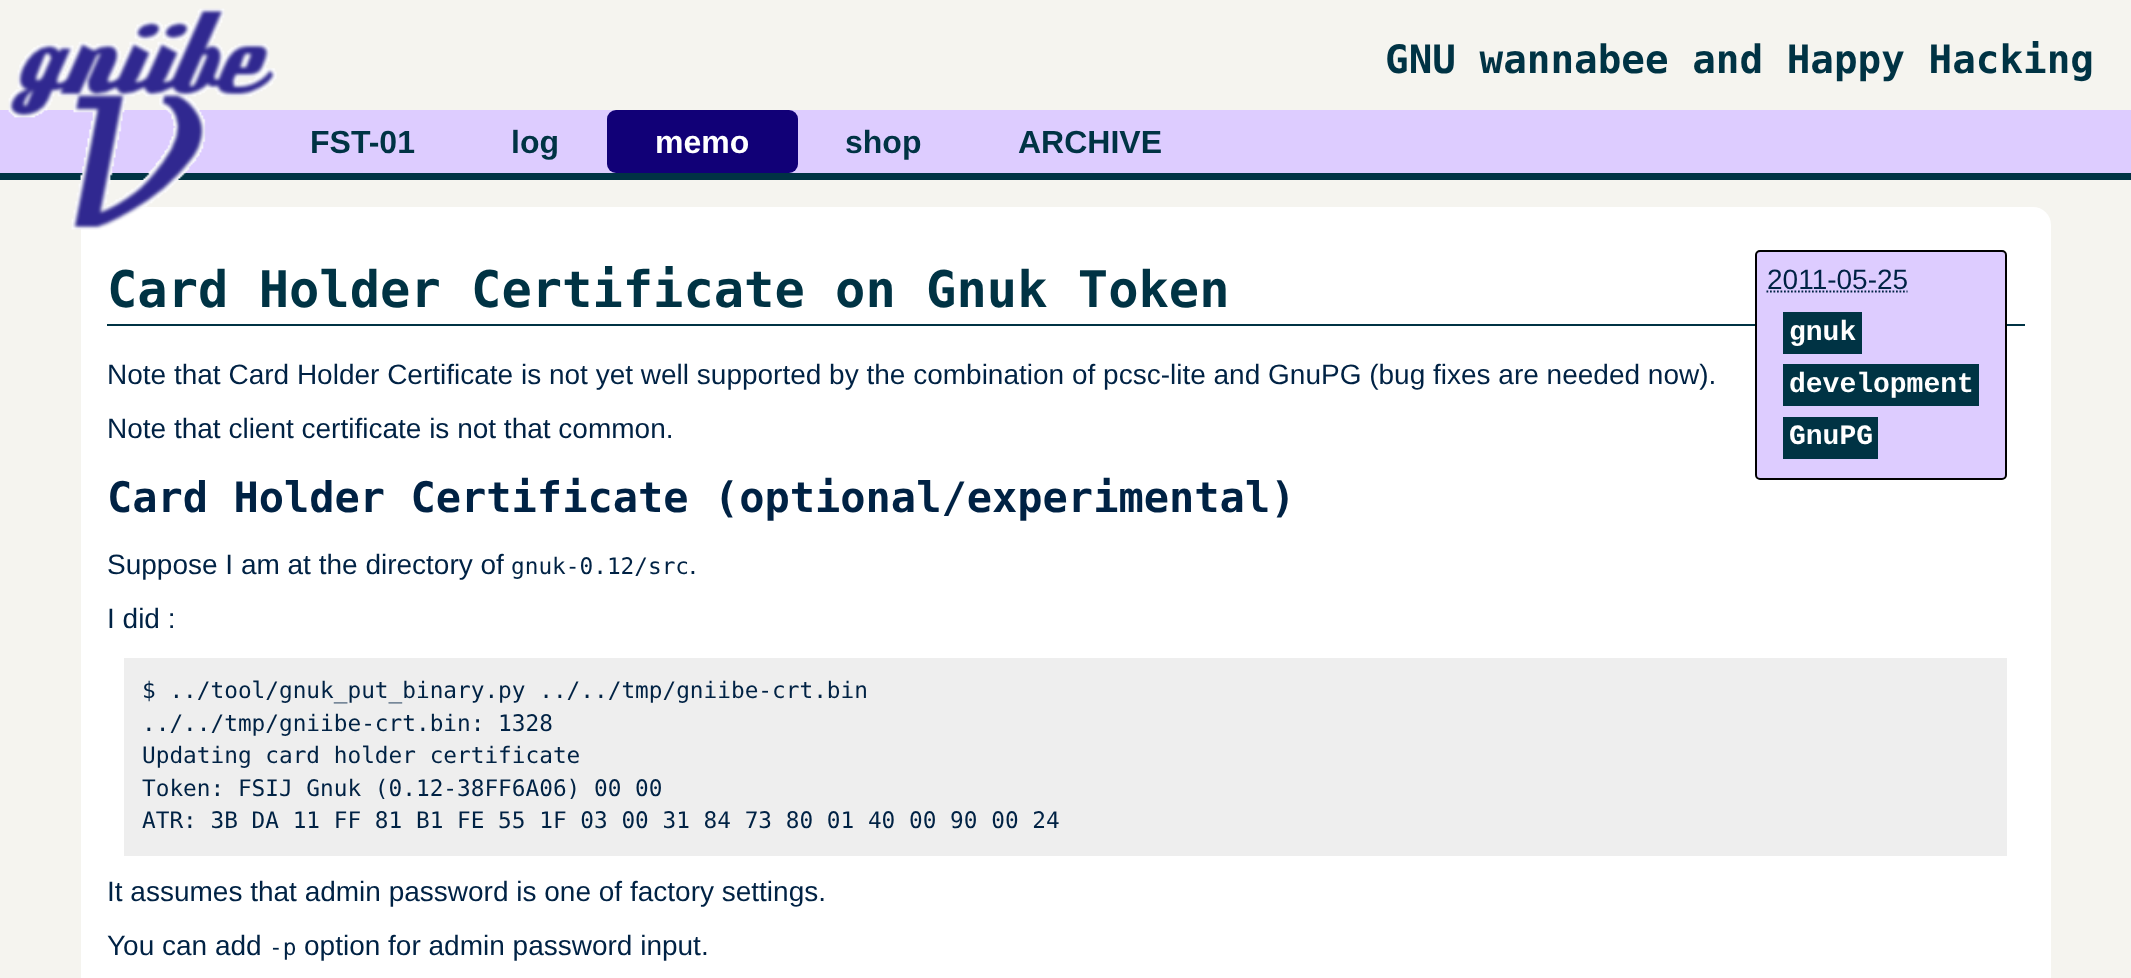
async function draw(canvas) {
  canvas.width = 2131
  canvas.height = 978
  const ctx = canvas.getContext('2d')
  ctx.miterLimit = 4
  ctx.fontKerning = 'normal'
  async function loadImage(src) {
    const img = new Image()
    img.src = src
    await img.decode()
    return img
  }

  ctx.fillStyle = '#f5f4ef'
  ctx.fillRect(0, 0, 2131, 978)
  ctx.fillStyle = '#dcf'
  ctx.fillRect(0, 110, 2131, 63)
  ctx.fillStyle = '#034'
  ctx.fillRect(0, 173, 2131, 7)
  ctx.fillStyle = '#fff'
  ctx.beginPath()
  ctx.roundRect(81, 207, 1970, 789, 18)
  ctx.fill()
  ctx.drawImage(await loadImage('image0.png'), 8, 8, 269, 222)
  ctx.font = 'bold 39.25px DejaVu Sans Mono'
  ctx.fillStyle = '#034'
  ctx.fillText('GNU wannabee and Happy Hacking', 1385, 73)
  ctx.font = 'bold 32px Liberation Sans'
  ctx.fillText('FST-01', 310, 153)
  ctx.fillText('log', 511, 153)
  ctx.fillStyle = '#107'
  ctx.beginPath()
  ctx.roundRect(607, 110, 191, 63, 9)
  ctx.fill()
  ctx.fillStyle = '#fff'
  ctx.fillText('memo', 655, 153)
  ctx.fillStyle = '#034'
  ctx.fillText('shop', 845, 153)
  ctx.fillText('ARCHIVE', 1018, 153)
  ctx.fillRect(107, 324, 1918, 2)
  ctx.font = 'bold 50.4px DejaVu Sans Mono'
  ctx.fillText('Card Holder Certificate on Gnuk Token', 107, 307)
  ctx.font = '28px Liberation Sans'
  ctx.fillStyle = '#024'
  ctx.fillText('Note that Card Holder Certificate is not yet well supported by the combination of pcsc-lite and GnuPG (bug fixes are needed now).', 107, 384)
  ctx.fillText('Note that client certificate is not that common.', 107, 438)
  ctx.font = 'bold 42px DejaVu Sans Mono'
  ctx.fillText('Card Holder Certificate (optional/experimental)', 107, 512)
  ctx.font = '28px Liberation Sans'
  ctx.fillText('Suppose I am at the directory of', 107, 574)
  ctx.font = '22.75px DejaVu Sans Mono'
  ctx.fillText('gnuk-0.12/src', 511, 574)
  ctx.font = '28px Liberation Sans'
  ctx.fillText('.', 689, 574)
  ctx.fillText('I did :', 107, 628)
  ctx.fillStyle = '#eee'
  ctx.fillRect(124, 658, 1883, 198)
  ctx.font = '22.75px DejaVu Sans Mono'
  ctx.fillStyle = '#024'
  ctx.fillText('$ ../tool/gnuk_put_binary.py ../../tmp/gniibe-crt.bin', 142, 698)
  ctx.fillText('../../tmp/gniibe-crt.bin: 1328', 142, 731)
  ctx.fillText('Updating card holder certificate', 142, 763)
  ctx.fillText('Token: FSIJ Gnuk (0.12-38FF6A06) 00 00', 142, 796)
  ctx.fillText('ATR: 3B DA 11 FF 81 B1 FE 55 1F 03 00 31 84 73 80 01 40 00 90 00 24', 142, 828)
  ctx.font = '28px Liberation Sans'
  ctx.fillText('It assumes that admin password is one of factory settings.', 107, 901)
  ctx.fillText('You can add', 107, 955)
  ctx.font = '22.75px DejaVu Sans Mono'
  ctx.fillText('-p', 269, 955)
  ctx.font = '28px Liberation Sans'
  ctx.fillText('option for admin password input.', 304, 955)
  ctx.fillStyle = '#dcf'
  ctx.beginPath()
  ctx.roundRect(1756, 251, 250, 228, 4)
  ctx.fill()
  ctx.strokeStyle = '#000'
  ctx.lineWidth = 2
  ctx.stroke()
  ctx.fillStyle = '#024'
  ctx.fillText('2011-05-25', 1767, 289)
  ctx.beginPath()
  ctx.moveTo(1766.5, 291.5)
  ctx.lineTo(1907.5, 291.5)
  ctx.strokeStyle = '#024'
  ctx.lineWidth = 1.8
  ctx.setLineDash([1.75, 1.75])
  ctx.stroke()
  ctx.fillStyle = '#034'
  ctx.fillRect(1783, 312, 79, 42)
  ctx.font = 'bold 28px Liberation Mono'
  ctx.fillStyle = '#fff'
  ctx.fillText('gnuk', 1789, 340)
  ctx.fillStyle = '#034'
  ctx.fillRect(1783, 364, 196, 42)
  ctx.fillStyle = '#fff'
  ctx.fillText('development', 1789, 392)
  ctx.fillStyle = '#034'
  ctx.fillRect(1783, 417, 95, 42)
  ctx.fillStyle = '#fff'
  ctx.fillText('GnuPG', 1789, 444)
}

draw(document.querySelector('canvas'))
